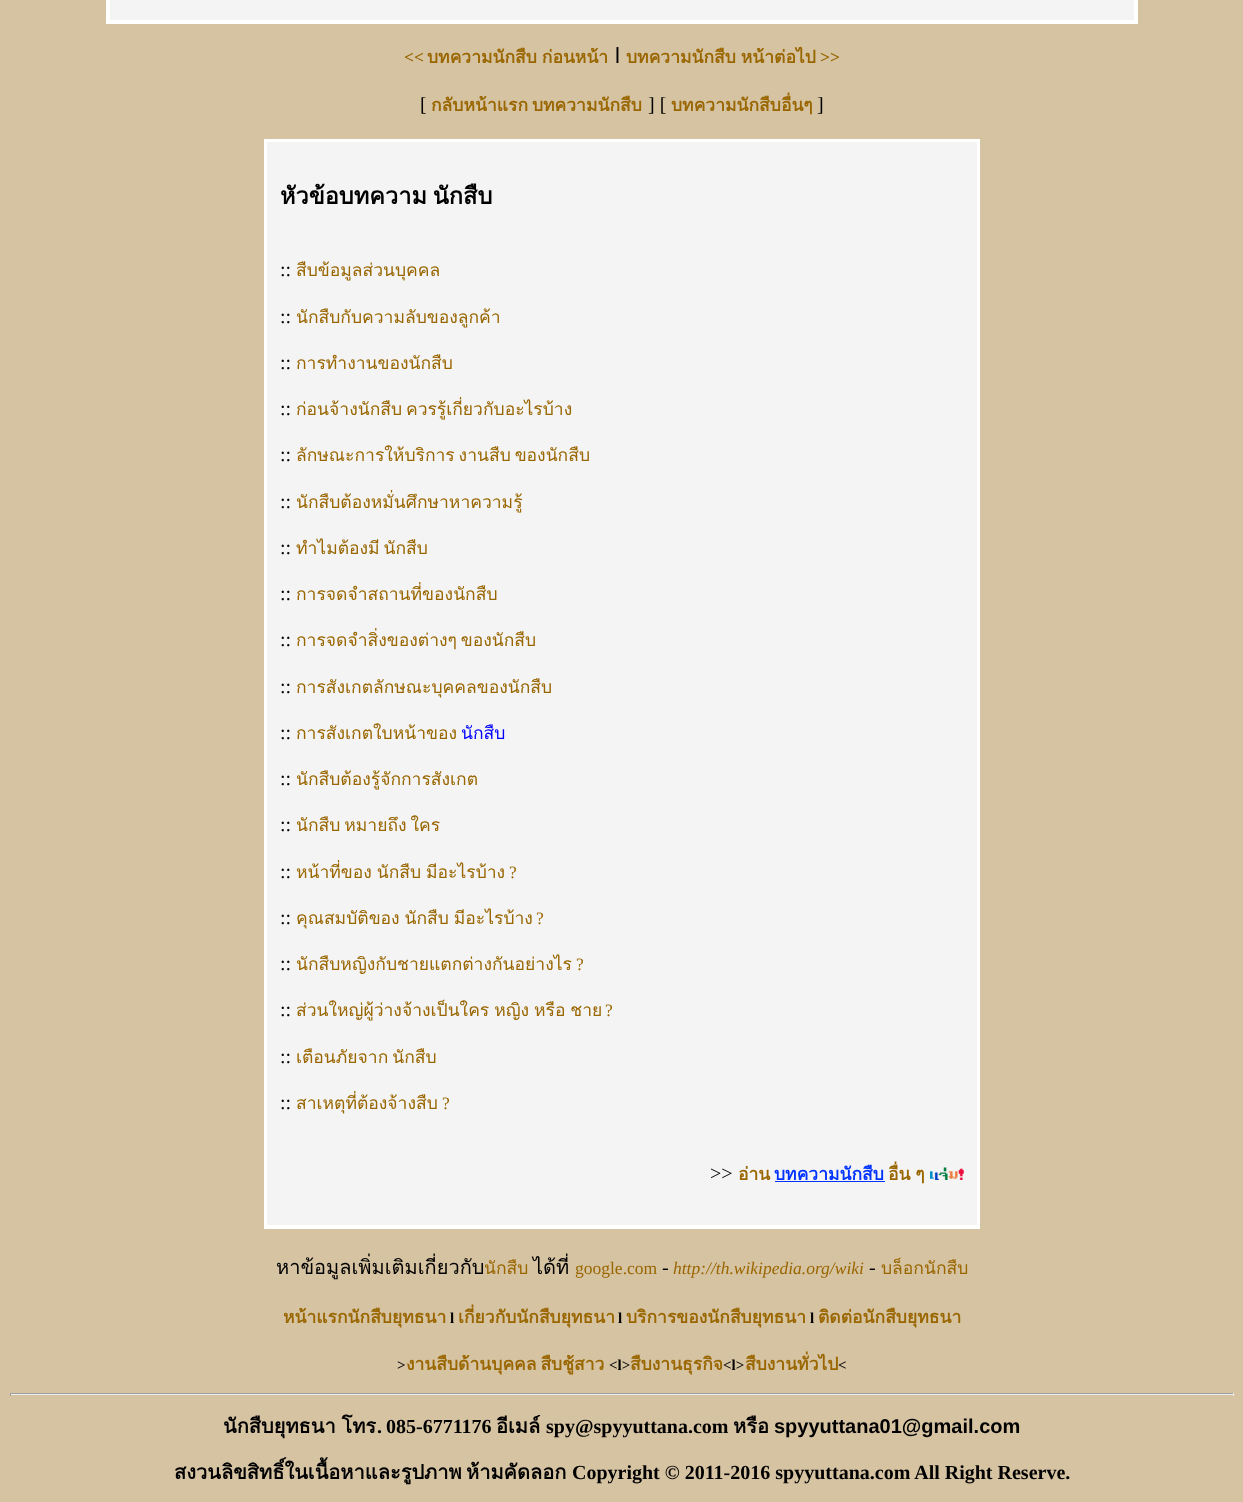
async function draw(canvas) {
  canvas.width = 1243
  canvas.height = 1502
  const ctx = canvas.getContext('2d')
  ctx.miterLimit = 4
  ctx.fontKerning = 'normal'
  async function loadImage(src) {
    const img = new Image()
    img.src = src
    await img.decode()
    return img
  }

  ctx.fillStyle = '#d6c3a2'
  ctx.fillRect(0, 0, 1243, 1502)
  ctx.fillStyle = '#f4f4f4'
  ctx.fillRect(110, 0, 1024, 20)
  ctx.strokeStyle = '#fff'
  ctx.lineWidth = 3
  ctx.strokeRect(107.5, -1.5, 1029, 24)
  ctx.lineWidth = 1
  ctx.strokeRect(109.5, -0.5, 1025, 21)
  ctx.font = 'bold 17.5px Liberation Serif'
  ctx.fillStyle = '#960'
  ctx.fillText('<<', 404, 63)
  ctx.wordSpacing = '-1px'
  ctx.font = 'bold 17.5px Loma'
  ctx.fillText('บทความนักสืบ ก่อนหน้า', 427, 63)
  ctx.wordSpacing = '0px'
  ctx.font = '22px Liberation Sans'
  ctx.fillStyle = '#000'
  ctx.fillText('l', 615, 63)
  ctx.wordSpacing = '-1px'
  ctx.font = 'bold 17.5px Loma'
  ctx.fillStyle = '#960'
  ctx.fillText('บทความนักสืบ หน้าต่อไป', 626, 63)
  ctx.wordSpacing = '0px'
  ctx.font = 'bold 17.5px Liberation Serif'
  ctx.fillText('>>', 820, 63)
  ctx.font = '20px Liberation Serif'
  ctx.fillStyle = '#000'
  ctx.fillText('[', 420, 111)
  ctx.wordSpacing = '-2px'
  ctx.font = 'bold 17.5px Loma'
  ctx.fillStyle = '#960'
  ctx.fillText('กลับหน้าแรก บทความนักสืบ', 431, 111)
  ctx.wordSpacing = '0px'
  ctx.font = '20px Liberation Serif'
  ctx.fillStyle = '#000'
  ctx.fillText('] [', 648, 111)
  ctx.font = 'bold 17.5px Loma'
  ctx.fillStyle = '#960'
  ctx.fillText('บทความนักสืบอื่นๆ', 671, 111)
  ctx.font = '20px Liberation Serif'
  ctx.fillStyle = '#000'
  ctx.fillText(']', 817, 111)
  ctx.fillStyle = '#f4f4f4'
  ctx.fillRect(267, 142, 710, 1083)
  ctx.lineWidth = 3
  ctx.strokeRect(265.5, 140.5, 713, 1087)
  ctx.lineWidth = 1
  ctx.strokeRect(266.5, 141.5, 711, 1084)
  ctx.wordSpacing = '-2px'
  ctx.font = 'bold 23.5px Loma'
  ctx.fillStyle = '#000'
  ctx.fillText('หัวข้อบทความ นักสืบ', 280, 204)
  ctx.wordSpacing = '0px'
  ctx.font = '20px Liberation Serif'
  ctx.fillText('::', 280, 276)
  ctx.font = '17.5px Loma'
  ctx.fillStyle = '#960'
  ctx.fillText('สืบข้อมูลส่วนบุคคล', 296, 276)
  ctx.font = '20px Liberation Serif'
  ctx.fillStyle = '#000'
  ctx.fillText('::', 280, 323)
  ctx.font = '17.5px Loma'
  ctx.fillStyle = '#960'
  ctx.fillText('นักสืบกับความลับของลูกค้า', 296, 323)
  ctx.font = '20px Liberation Serif'
  ctx.fillStyle = '#000'
  ctx.fillText('::', 280, 369)
  ctx.font = '17.5px Loma'
  ctx.fillStyle = '#960'
  ctx.fillText('การทำงานของนักสืบ', 296, 369)
  ctx.font = '20px Liberation Serif'
  ctx.fillStyle = '#000'
  ctx.fillText('::', 280, 415)
  ctx.wordSpacing = '-2px'
  ctx.font = '17.5px Loma'
  ctx.fillStyle = '#960'
  ctx.fillText('ก่อนจ้างนักสืบ ควรรู้เกี่ยวกับอะไรบ้าง', 296, 415)
  ctx.wordSpacing = '0px'
  ctx.font = '20px Liberation Serif'
  ctx.fillStyle = '#000'
  ctx.fillText('::', 280, 461)
  ctx.wordSpacing = '-2px'
  ctx.font = '17.5px Loma'
  ctx.fillStyle = '#960'
  ctx.fillText('ลักษณะการให้บริการ งานสืบ ของนักสืบ', 296, 461)
  ctx.wordSpacing = '0px'
  ctx.font = '20px Liberation Serif'
  ctx.fillStyle = '#000'
  ctx.fillText('::', 280, 508)
  ctx.font = '17.5px Loma'
  ctx.fillStyle = '#960'
  ctx.fillText('นักสืบต้องหมั่นศึกษาหาความรู้', 296, 508)
  ctx.font = '20px Liberation Serif'
  ctx.fillStyle = '#000'
  ctx.fillText('::', 280, 554)
  ctx.wordSpacing = '-2px'
  ctx.font = '17.5px Loma'
  ctx.fillStyle = '#960'
  ctx.fillText('ทำไมต้องมี นักสืบ', 296, 554)
  ctx.wordSpacing = '0px'
  ctx.font = '20px Liberation Serif'
  ctx.fillStyle = '#000'
  ctx.fillText('::', 280, 600)
  ctx.font = '17.5px Loma'
  ctx.fillStyle = '#960'
  ctx.fillText('การจดจำสถานที่ของนักสืบ', 296, 600)
  ctx.font = '20px Liberation Serif'
  ctx.fillStyle = '#000'
  ctx.fillText('::', 280, 646)
  ctx.wordSpacing = '-2px'
  ctx.font = '17.5px Loma'
  ctx.fillStyle = '#960'
  ctx.fillText('การจดจำสิ่งของต่างๆ ของนักสืบ', 296, 646)
  ctx.wordSpacing = '0px'
  ctx.font = '20px Liberation Serif'
  ctx.fillStyle = '#000'
  ctx.fillText('::', 280, 693)
  ctx.font = '17.5px Loma'
  ctx.fillStyle = '#960'
  ctx.fillText('การสังเกตลักษณะบุคคลของนักสืบ', 296, 693)
  ctx.font = '20px Liberation Serif'
  ctx.fillStyle = '#000'
  ctx.fillText('::', 280, 739)
  ctx.font = '17.5px Loma'
  ctx.fillStyle = '#960'
  ctx.fillText('การสังเกตใบหน้าของ', 296, 739)
  ctx.fillStyle = '#00f'
  ctx.fillText('นักสืบ', 461, 739)
  ctx.font = '20px Liberation Serif'
  ctx.fillStyle = '#000'
  ctx.fillText('::', 280, 785)
  ctx.font = '17.5px Loma'
  ctx.fillStyle = '#960'
  ctx.fillText('นักสืบต้องรู้จักการสังเกต', 296, 785)
  ctx.font = '20px Liberation Serif'
  ctx.fillStyle = '#000'
  ctx.fillText('::', 280, 831)
  ctx.wordSpacing = '-2px'
  ctx.font = '17.5px Loma'
  ctx.fillStyle = '#960'
  ctx.fillText('นักสืบ หมายถึง ใคร', 296, 831)
  ctx.wordSpacing = '0px'
  ctx.font = '20px Liberation Serif'
  ctx.fillStyle = '#000'
  ctx.fillText('::', 280, 878)
  ctx.wordSpacing = '-1px'
  ctx.font = '17.5px Loma'
  ctx.fillStyle = '#960'
  ctx.fillText('หน้าที่ของ นักสืบ มีอะไรบ้าง', 296, 878)
  ctx.wordSpacing = '0px'
  ctx.font = '17.5px Liberation Serif'
  ctx.fillText('?', 509, 878)
  ctx.font = '20px Liberation Serif'
  ctx.fillStyle = '#000'
  ctx.fillText('::', 280, 924)
  ctx.wordSpacing = '-1px'
  ctx.font = '17.5px Loma'
  ctx.fillStyle = '#960'
  ctx.fillText('คุณสมบัติของ นักสืบ มีอะไรบ้าง', 296, 924)
  ctx.wordSpacing = '0px'
  ctx.font = '17.5px Liberation Serif'
  ctx.fillText('?', 536, 924)
  ctx.font = '20px Liberation Serif'
  ctx.fillStyle = '#000'
  ctx.fillText('::', 280, 970)
  ctx.font = '17.5px Loma'
  ctx.fillStyle = '#960'
  ctx.fillText('นักสืบหญิงกับชายแตกต่างกันอย่างไร', 296, 970)
  ctx.font = '17.5px Liberation Serif'
  ctx.fillText('?', 576, 970)
  ctx.font = '20px Liberation Serif'
  ctx.fillStyle = '#000'
  ctx.fillText('::', 280, 1016)
  ctx.wordSpacing = '-1px'
  ctx.font = '17.5px Loma'
  ctx.fillStyle = '#960'
  ctx.fillText('ส่วนใหญ่ผู้ว่างจ้างเป็นใคร หญิง หรือ ชาย', 296, 1016)
  ctx.wordSpacing = '0px'
  ctx.font = '17.5px Liberation Serif'
  ctx.fillText('?', 605, 1016)
  ctx.font = '20px Liberation Serif'
  ctx.fillStyle = '#000'
  ctx.fillText('::', 280, 1063)
  ctx.wordSpacing = '-2px'
  ctx.font = '17.5px Loma'
  ctx.fillStyle = '#960'
  ctx.fillText('เตือนภัยจาก นักสืบ', 296, 1063)
  ctx.wordSpacing = '0px'
  ctx.font = '20px Liberation Serif'
  ctx.fillStyle = '#000'
  ctx.fillText('::', 280, 1109)
  ctx.font = '17.5px Loma'
  ctx.fillStyle = '#960'
  ctx.fillText('สาเหตุที่ต้องจ้างสืบ', 296, 1109)
  ctx.font = '17.5px Liberation Serif'
  ctx.fillText('?', 442, 1109)
  ctx.font = '20px Liberation Serif'
  ctx.fillStyle = '#000'
  ctx.fillText('>>', 710, 1180)
  ctx.font = 'bold 17.5px Loma'
  ctx.fillStyle = '#960'
  ctx.fillText('อ่าน', 738, 1180)
  ctx.fillStyle = '#03f'
  ctx.fillText('บทความนักสืบ', 774, 1180)
  ctx.fillRect(775, 1181, 110, 1)
  ctx.wordSpacing = '-1px'
  ctx.fillStyle = '#960'
  ctx.fillText('อื่น ๆ', 888, 1180)
  ctx.drawImage(await loadImage('image0.png'), 930, 1167, 34, 13)
  ctx.wordSpacing = '0px'
  ctx.font = '20px Loma'
  ctx.fillStyle = '#000'
  ctx.fillText('หาข้อมูลเพิ่มเติมเกี่ยวกับ', 276, 1274)
  ctx.font = '17.5px Loma'
  ctx.fillStyle = '#960'
  ctx.fillText('นักสืบ', 484, 1274)
  ctx.font = '20px Loma'
  ctx.fillStyle = '#000'
  ctx.fillText('ได้ที่', 533, 1274)
  ctx.font = '17.5px Liberation Serif'
  ctx.fillStyle = '#960'
  ctx.fillText('google.com', 575, 1274)
  ctx.font = '20px Liberation Serif'
  ctx.fillStyle = '#000'
  ctx.fillText('-', 662, 1274)
  ctx.font = 'italic 17.5px Liberation Serif'
  ctx.fillStyle = '#960'
  ctx.fillText('http://th.wikipedia.org/wiki', 673, 1274)
  ctx.font = '20px Liberation Serif'
  ctx.fillStyle = '#000'
  ctx.fillText('-', 869, 1274)
  ctx.font = '17.5px Loma'
  ctx.fillStyle = '#960'
  ctx.fillText('บล็อกนักสืบ', 881, 1274)
  ctx.font = 'bold 17.5px Loma'
  ctx.fillText('หน้าแรกนักสืบยุทธนา', 283, 1323)
  ctx.font = 'bold 15px Liberation Serif'
  ctx.fillStyle = '#000'
  ctx.fillText('l', 450, 1323)
  ctx.font = 'bold 17.5px Loma'
  ctx.fillStyle = '#960'
  ctx.fillText('เกี่ยวกับนักสืบยุทธนา', 458, 1323)
  ctx.font = 'bold 15px Liberation Serif'
  ctx.fillStyle = '#000'
  ctx.fillText('l', 618, 1323)
  ctx.font = 'bold 17.5px Loma'
  ctx.fillStyle = '#960'
  ctx.fillText('บริการของนักสืบยุทธนา', 626, 1323)
  ctx.font = 'bold 15px Liberation Serif'
  ctx.fillStyle = '#000'
  ctx.fillText('l', 810, 1323)
  ctx.font = 'bold 17.5px Loma'
  ctx.fillStyle = '#960'
  ctx.fillText('ติดต่อนักสืบยุทธนา', 818, 1323)
  ctx.font = 'bold 15px Liberation Serif'
  ctx.fillStyle = '#000'
  ctx.fillText('>', 397, 1370)
  ctx.wordSpacing = '-2px'
  ctx.font = 'bold 17.5px Loma'
  ctx.fillStyle = '#960'
  ctx.fillText('งานสืบด้านบุคคล สืบชู้สาว', 406, 1370)
  ctx.wordSpacing = '0px'
  ctx.font = 'bold 15px Liberation Serif'
  ctx.fillStyle = '#000'
  ctx.fillText('<l>', 609, 1370)
  ctx.font = 'bold 17.5px Loma'
  ctx.fillStyle = '#960'
  ctx.fillText('สืบงานธุรกิจ', 630, 1370)
  ctx.font = 'bold 15px Liberation Serif'
  ctx.fillStyle = '#000'
  ctx.fillText('<l>', 723, 1370)
  ctx.font = 'bold 17.5px Loma'
  ctx.fillStyle = '#960'
  ctx.fillText('สืบงานทั่วไป', 745, 1370)
  ctx.font = 'bold 15px Liberation Serif'
  ctx.fillStyle = '#000'
  ctx.fillText('<', 838, 1370)
  ctx.fillStyle = '#9f9f9f'
  ctx.fillRect(10, 1393, 1224, 1)
  ctx.fillStyle = '#eee'
  ctx.fillRect(1233, 1393, 1, 3)
  ctx.fillRect(10, 1394, 1224, 1)
  ctx.fillStyle = '#9f9f9f'
  ctx.fillRect(10, 1393, 1, 3)
  ctx.wordSpacing = '-1px'
  ctx.font = 'bold 20px Loma'
  ctx.fillStyle = '#000'
  ctx.fillText('นักสืบยุทธนา โทร', 223, 1433)
  ctx.wordSpacing = '0px'
  ctx.font = 'bold 20px Liberation Serif'
  ctx.fillText('.', 377, 1433)
  ctx.fillText('085-6771176', 386, 1433)
  ctx.font = 'bold 20px Loma'
  ctx.fillText('อีเมล์', 496, 1433)
  ctx.font = 'bold 20px Liberation Serif'
  ctx.fillText('spy@spyyuttana.com', 546, 1433)
  ctx.font = 'bold 20px Loma'
  ctx.fillText('หรือ', 733, 1433)
  ctx.font = 'bold 20px Liberation Sans'
  ctx.fillText('spyyuttana01@gmail.com', 774, 1433)
  ctx.font = 'bold 20px Loma'
  ctx.fillText('สงวนลิขสิทธิ์ในเนื้อหาและรูปภาพ', 174, 1479)
  ctx.fillText('ห้ามคัดลอก', 466, 1479)
  ctx.font = 'bold 20px Liberation Serif'
  ctx.fillText('Copyright © 2011-2016 spyyuttana.com All Right Reserve.', 572, 1479)
}

draw(document.querySelector('canvas'))
